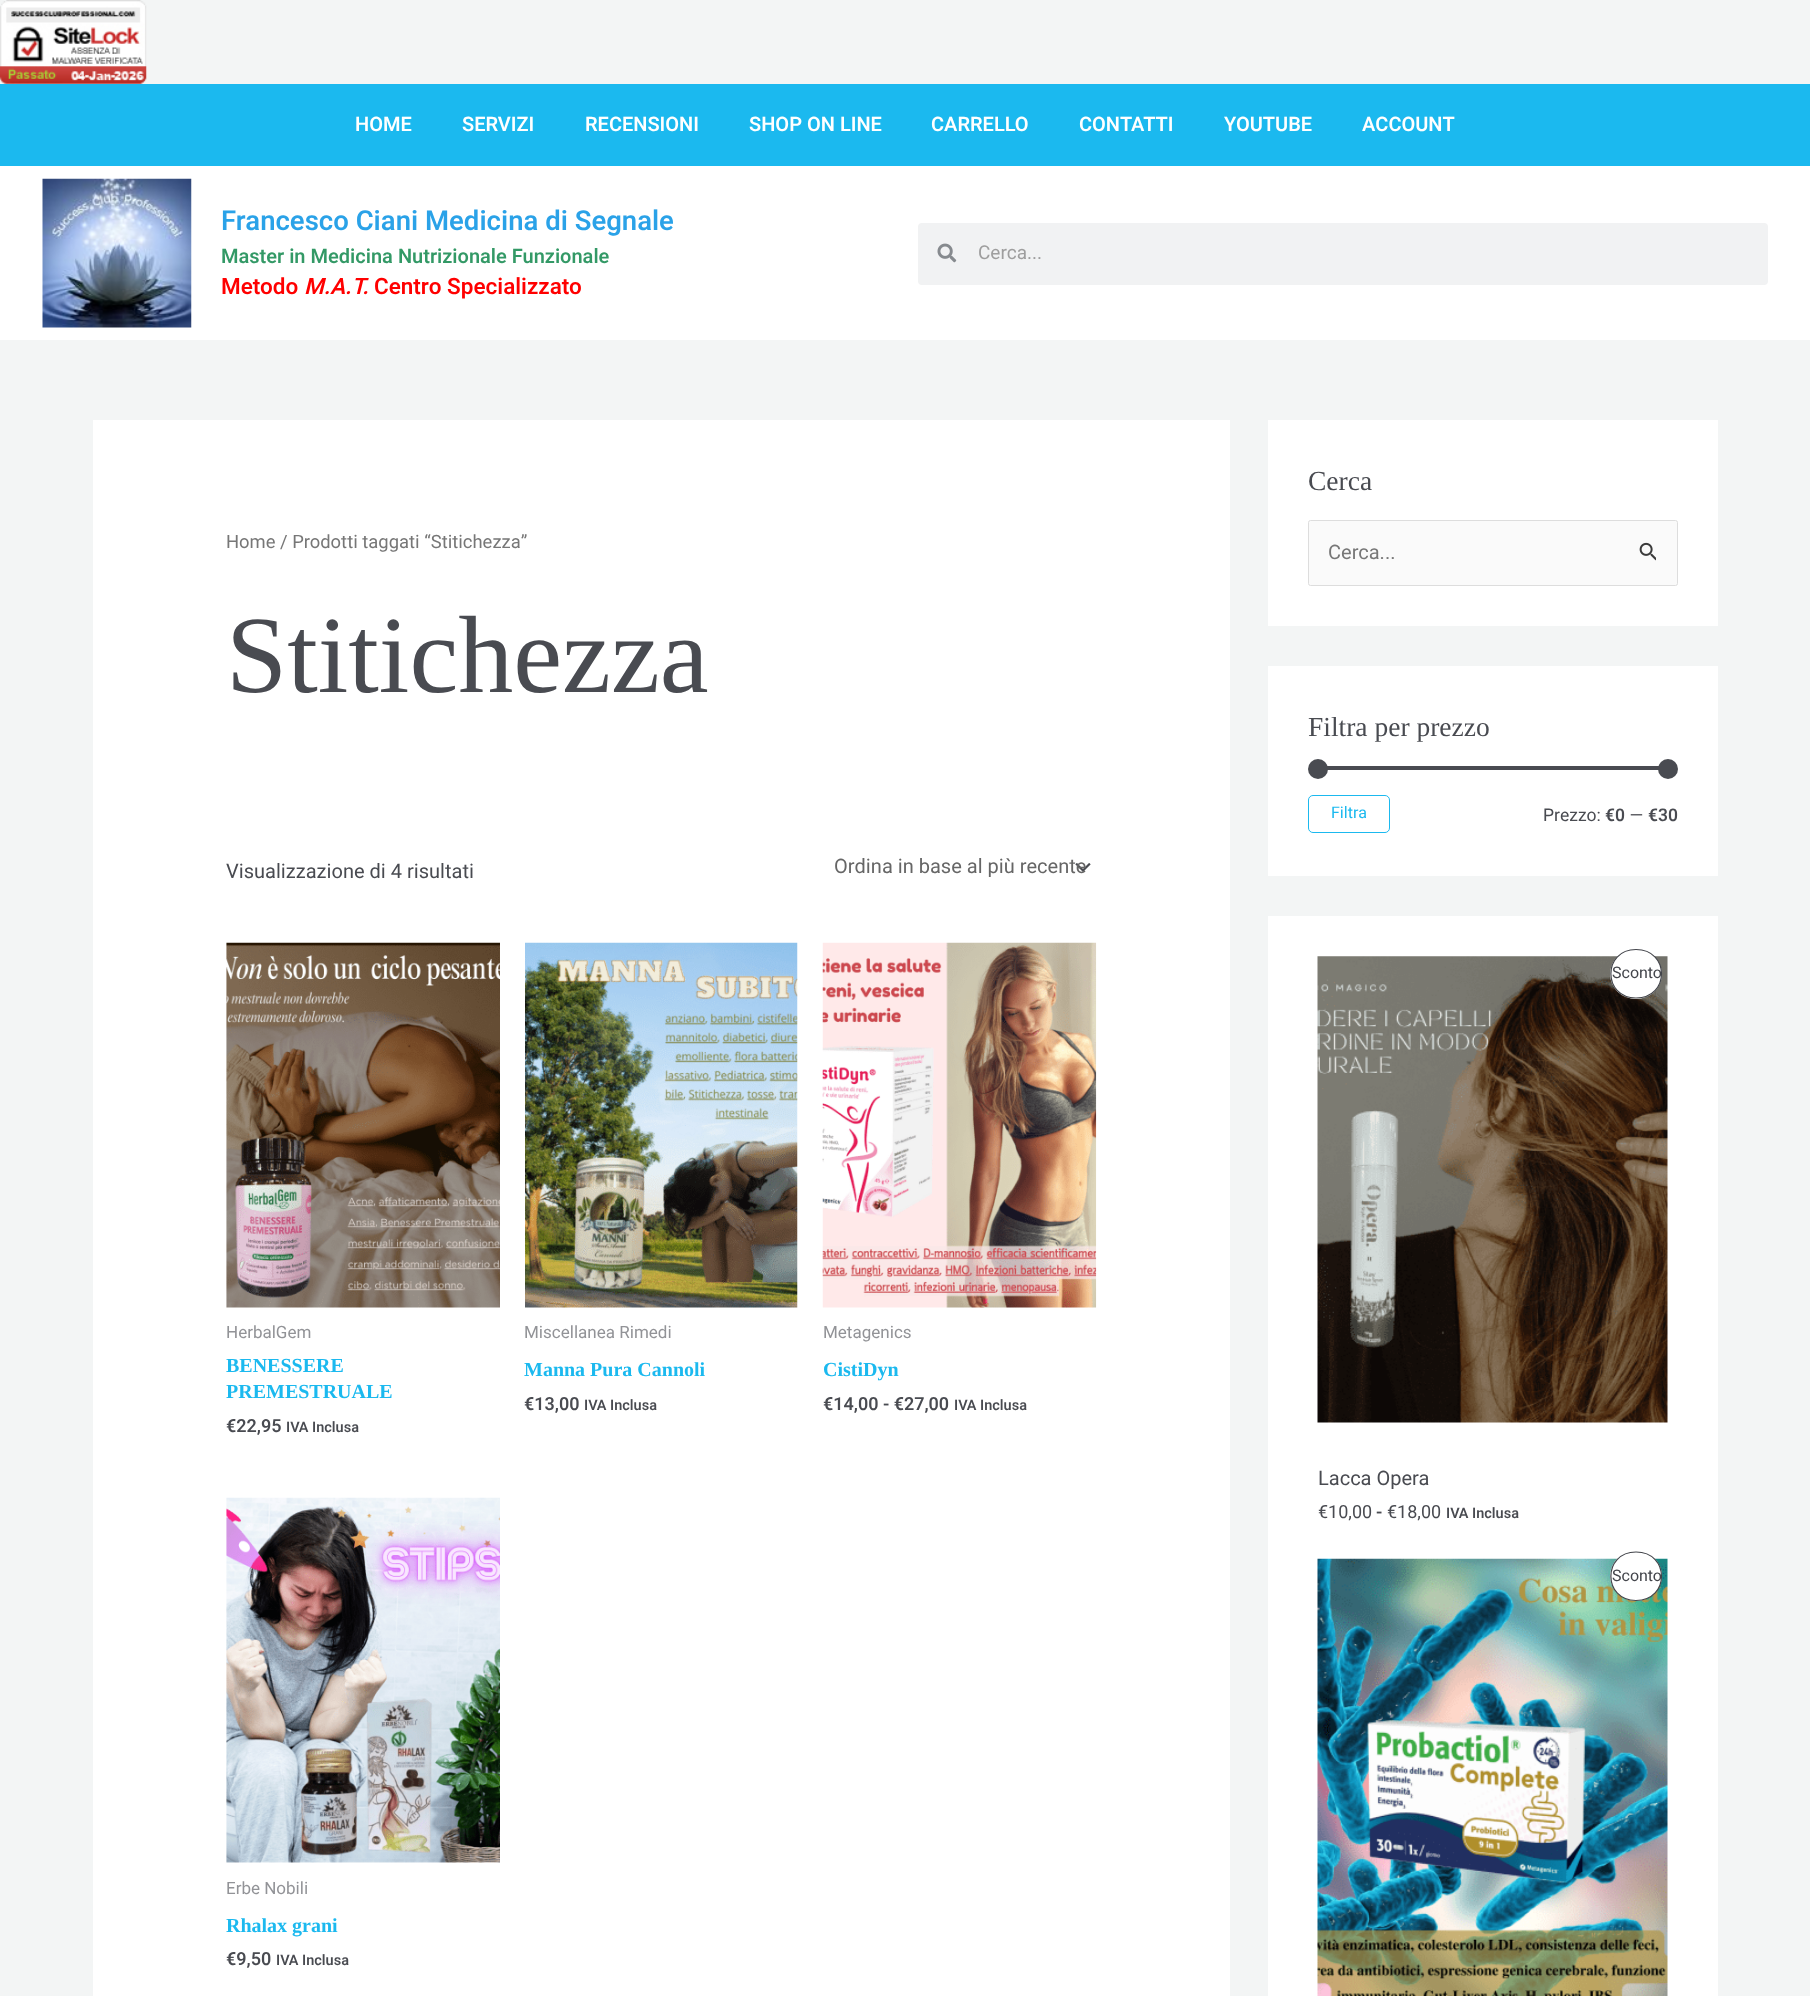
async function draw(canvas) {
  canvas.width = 1810
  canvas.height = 1996
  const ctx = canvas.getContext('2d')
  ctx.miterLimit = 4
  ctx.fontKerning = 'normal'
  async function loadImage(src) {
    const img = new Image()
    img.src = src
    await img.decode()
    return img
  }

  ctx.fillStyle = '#f3f5f5'
  ctx.fillRect(0, 0, 1810, 1996)
  ctx.drawImage(await loadImage('image0.png'), 0, 0, 147, 84)
  ctx.fillStyle = '#1bb9ef'
  ctx.fillRect(0, 84, 1810, 82)
  ctx.font = '600 20px Heebo'
  ctx.fillStyle = '#fff'
  ctx.fillText('HOME', 355, 131)
  ctx.fillText('SERVIZI', 462, 131)
  ctx.fillText('RECENSIONI', 585, 131)
  ctx.fillText('SHOP ON LINE', 749, 131)
  ctx.fillText('CARRELLO', 931, 131)
  ctx.fillText('CONTATTI', 1079, 131)
  ctx.fillText('YOUTUBE', 1224, 131)
  ctx.fillText('ACCOUNT', 1362, 131)
  ctx.fillRect(0, 166, 1810, 174)
  ctx.drawImage(await loadImage('image1.png'), 42, 178, 150, 150)
  ctx.font = '600 27.5px Heebo'
  ctx.fillStyle = '#2aa2e8'
  ctx.fillText('Francesco Ciani Medicina di Segnale', 221, 230)
  ctx.font = '600 20px Heebo'
  ctx.fillStyle = '#396'
  ctx.fillText('Master in Medicina Nutrizionale Funzionale', 221, 263)
  ctx.font = '600 22.5px Heebo'
  ctx.fillStyle = '#f00'
  ctx.fillText('Metodo', 221, 294)
  ctx.font = 'italic 600 22.5px Heebo'
  ctx.fillText('M.A.T.', 304, 294)
  ctx.font = '600 22.5px Heebo'
  ctx.fillText('Centro Specializzato', 374, 294)
  ctx.fillStyle = '#f1f2f3'
  ctx.beginPath()
  ctx.roundRect(918, 223, 850, 62, 4)
  ctx.fill()
  ctx.drawImage(await loadImage('image2.png'), 937, 243, 20, 20)
  ctx.font = '19px Heebo'
  ctx.fillStyle = '#9e9e9e'
  ctx.fillText('Cerca...', 978, 259)
  ctx.fillStyle = '#fff'
  ctx.fillRect(93, 420, 1137, 1576)
  ctx.font = '18.4px Heebo'
  ctx.fillStyle = '#777'
  ctx.fillText('Home / Prodotti taggati “Stitichezza”', 226, 548)
  ctx.font = '110px Liberation Serif'
  ctx.fillStyle = '#494b51'
  ctx.fillText('Stitichezza', 226, 692)
  ctx.font = '20px Heebo'
  ctx.fillText('Visualizzazione di 4 risultati', 226, 878)
  ctx.drawImage(await loadImage('image3.png'), 1075, 863, 16, 9)
  ctx.fillStyle = '#666'
  ctx.fillText('Ordina in base al più recente', 834, 873)
  ctx.drawImage(await loadImage('image4.png'), 226, 942, 274, 366)
  ctx.font = '17px Heebo'
  ctx.fillStyle = '#929397'
  ctx.fillText('HerbalGem', 226, 1338)
  ctx.font = 'bold 20px Liberation Serif'
  ctx.fillStyle = '#1bb9ef'
  ctx.fillText('BENESSERE', 226, 1372)
  ctx.fillText('PREMESTRUALE', 226, 1398)
  ctx.font = '600 18px Heebo'
  ctx.fillStyle = '#494b51'
  ctx.fillText('€22,95', 226, 1432)
  ctx.font = '600 14.5px Heebo'
  ctx.fillText('IVA Inclusa', 286, 1432)
  ctx.drawImage(await loadImage('image5.png'), 525, 942, 273, 366)
  ctx.font = '17px Heebo'
  ctx.fillStyle = '#929397'
  ctx.fillText('Miscellanea Rimedi', 524, 1338)
  ctx.font = 'bold 20px Liberation Serif'
  ctx.fillStyle = '#1bb9ef'
  ctx.fillText('Manna Pura Cannoli', 524, 1376)
  ctx.font = '600 18px Heebo'
  ctx.fillStyle = '#494b51'
  ctx.fillText('€13,00', 524, 1410)
  ctx.font = '600 14.5px Heebo'
  ctx.fillText('IVA Inclusa', 584, 1410)
  ctx.drawImage(await loadImage('image6.png'), 822, 942, 275, 366)
  ctx.font = '17px Heebo'
  ctx.fillStyle = '#929397'
  ctx.fillText('Metagenics', 823, 1338)
  ctx.font = 'bold 20px Liberation Serif'
  ctx.fillStyle = '#1bb9ef'
  ctx.fillText('CistiDyn', 823, 1376)
  ctx.font = '600 18px Heebo'
  ctx.fillStyle = '#494b51'
  ctx.fillText('€14,00 - €27,00', 823, 1410)
  ctx.font = '600 14.5px Heebo'
  ctx.fillText('IVA Inclusa', 954, 1410)
  ctx.drawImage(await loadImage('image7.png'), 226, 1497, 274, 366)
  ctx.font = '17px Heebo'
  ctx.fillStyle = '#929397'
  ctx.fillText('Erbe Nobili', 226, 1894)
  ctx.font = 'bold 20px Liberation Serif'
  ctx.fillStyle = '#1bb9ef'
  ctx.fillText('Rhalax grani', 226, 1932)
  ctx.font = '600 18px Heebo'
  ctx.fillStyle = '#494b51'
  ctx.fillText('€9,50', 226, 1965)
  ctx.font = '600 14.5px Heebo'
  ctx.fillText('IVA Inclusa', 276, 1965)
  ctx.fillStyle = '#fff'
  ctx.fillRect(1268, 420, 450, 206)
  ctx.font = '27.5px Liberation Serif'
  ctx.fillStyle = '#494b51'
  ctx.fillText('Cerca', 1308, 490)
  ctx.fillStyle = '#fafafa'
  ctx.beginPath()
  ctx.roundRect(1308.5, 520.5, 369, 65, 2)
  ctx.fill()
  ctx.strokeStyle = '#ddd'
  ctx.stroke()
  ctx.font = '20px Heebo'
  ctx.fillStyle = '#777'
  ctx.fillText('Cerca...', 1328, 559)
  ctx.drawImage(await loadImage('image8.png'), 1639, 542, 17, 19)
  ctx.fillStyle = '#fff'
  ctx.fillRect(1268, 666, 450, 210)
  ctx.font = '27.5px Liberation Serif'
  ctx.fillStyle = '#494b51'
  ctx.fillText('Filtra per prezzo', 1308, 736)
  ctx.fillRect(1327, 766, 332, 4)
  ctx.beginPath()
  ctx.arc(1318, 769, 10, 0, 2 * Math.PI)
  ctx.fill()
  ctx.beginPath()
  ctx.arc(1668, 769, 10, 0, 2 * Math.PI)
  ctx.fill()
  ctx.beginPath()
  ctx.roundRect(1308.5, 795.5, 81, 37, 4.5)
  ctx.strokeStyle = '#1bb9ef'
  ctx.stroke()
  ctx.font = '16px Heebo'
  ctx.fillStyle = '#1bb9ef'
  ctx.fillText('Filtra', 1331, 818)
  ctx.font = '17.5px Heebo'
  ctx.fillStyle = '#494b51'
  ctx.fillText('Prezzo:', 1543, 821)
  ctx.font = '600 17.5px Heebo'
  ctx.fillText('€0', 1605, 821)
  ctx.font = '17.5px Heebo'
  ctx.fillText('—', 1630, 821)
  ctx.font = '600 17.5px Heebo'
  ctx.fillText('€30', 1648, 821)
  ctx.fillStyle = '#fff'
  ctx.fillRect(1268, 916, 450, 1080)
  ctx.drawImage(await loadImage('image9.png'), 1317, 956, 351, 467)
  ctx.beginPath()
  ctx.ellipse(1636, 974, 26, 25, 0, 0, 2 * Math.PI)
  ctx.fill()
  ctx.beginPath()
  ctx.moveTo(1636, 949.5)
  ctx.bezierCurveTo(1670, 949.5, 1670, 998, 1636, 998)
  ctx.bezierCurveTo(1602.5, 998, 1602.5, 949.5, 1636, 949.5)
  ctx.closePath()
  ctx.strokeStyle = '#43454b'
  ctx.lineWidth = 1.2
  ctx.stroke()
  ctx.font = '16px Heebo'
  ctx.fillStyle = '#43454b'
  ctx.fillText('Sconto', 1612, 978)
  ctx.font = '20px Heebo'
  ctx.fillStyle = '#494b51'
  ctx.fillText('Lacca Opera', 1318, 1485)
  ctx.font = '18px Heebo'
  ctx.fillText('€10,00', 1318, 1518)
  ctx.font = '600 18px Heebo'
  ctx.fillText('-', 1376, 1518)
  ctx.font = '18px Heebo'
  ctx.fillText('€18,00', 1387, 1518)
  ctx.font = '600 14.5px Heebo'
  ctx.fillText('IVA Inclusa', 1446, 1518)
  ctx.drawImage(await loadImage('image10.png'), 1317, 1558, 351, 438)
  ctx.fillStyle = '#fff'
  ctx.beginPath()
  ctx.ellipse(1636, 1576, 26, 25, 0, 0, 2 * Math.PI)
  ctx.fill()
  ctx.beginPath()
  ctx.moveTo(1636, 1552)
  ctx.bezierCurveTo(1670, 1552, 1670, 1600.5, 1636, 1600.5)
  ctx.bezierCurveTo(1602.5, 1600.5, 1602.5, 1552, 1636, 1552)
  ctx.closePath()
  ctx.stroke()
  ctx.font = '16px Heebo'
  ctx.fillStyle = '#43454b'
  ctx.fillText('Sconto', 1612, 1581)
}

draw(document.querySelector('canvas'))
